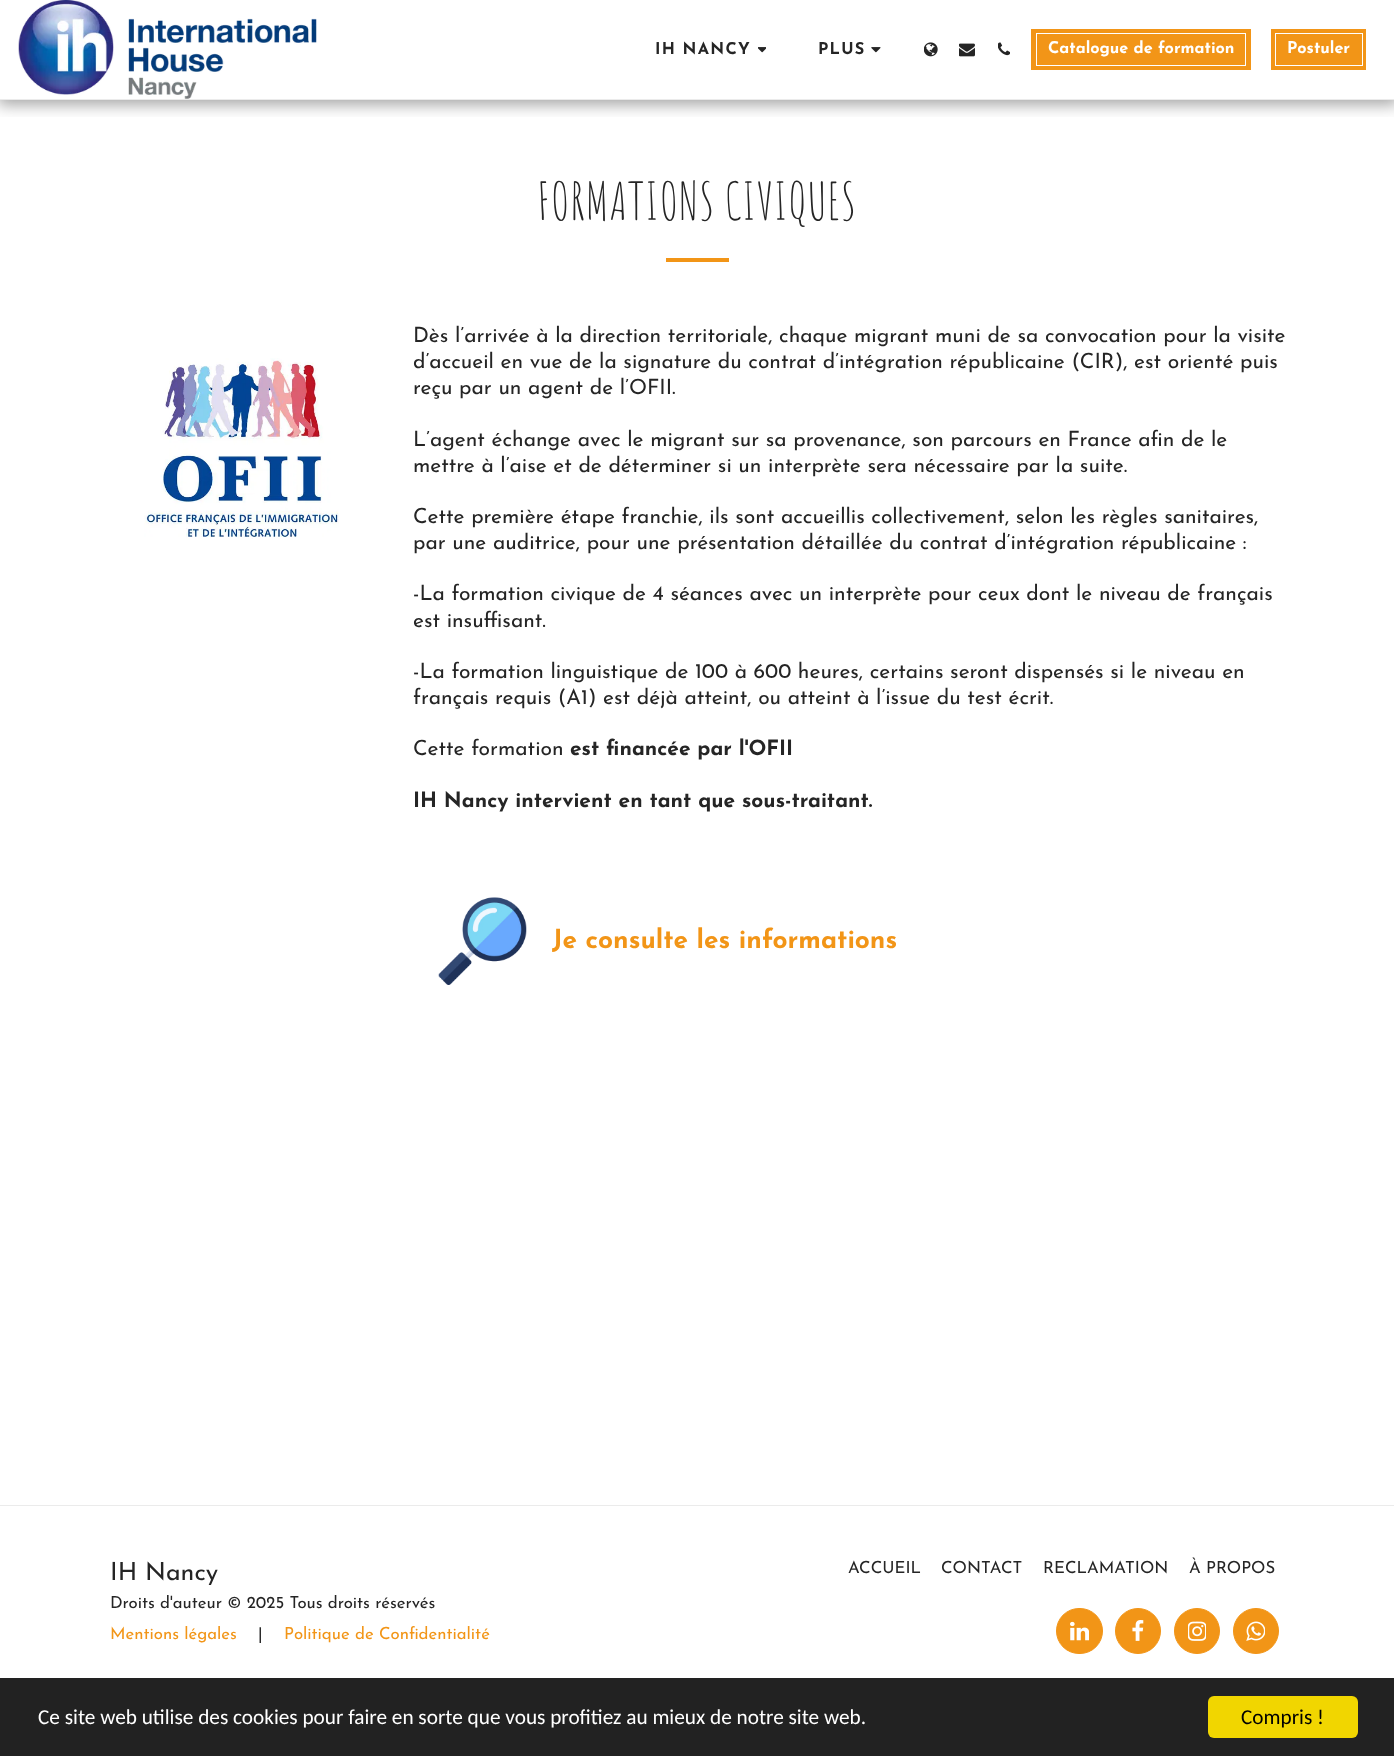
async function draw(canvas) {
  canvas.width = 1394
  canvas.height = 1756
  const ctx = canvas.getContext('2d')
  ctx.miterLimit = 4
  ctx.fontKerning = 'normal'
  async function loadImage(src) {
    const img = new Image()
    img.src = src
    await img.decode()
    return img
  }

  ctx.fillStyle = '#fff'
  ctx.fillRect(0, 0, 1394, 1756)
  ctx.save()
  ctx.beginPath()
  ctx.rect(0, 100, 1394, 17)
  ctx.clip()
  ctx.fillStyle = '#00000059'
  ctx.filter = 'blur(7.5px)'
  ctx.beginPath()
  ctx.rect(-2, 0, 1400, 105)
  ctx.fill()
  ctx.filter = 'none'
  ctx.restore()
  ctx.fillStyle = '#ebebeb'
  ctx.fillRect(0, 99, 1394, 1)
  ctx.drawImage(await loadImage('image0.png'), 18, 0, 299, 99)
  ctx.letterSpacing = '1.25px'
  ctx.font = 'bold 16.25px Josefin Sans'
  ctx.fillStyle = '#252525'
  ctx.fillText('IH NANCY', 655, 54)
  ctx.drawImage(await loadImage('image1.png'), 758, 47, 8, 6)
  ctx.fillText('PLUS', 818, 54)
  ctx.drawImage(await loadImage('image2.png'), 871, 47, 10, 6)
  ctx.drawImage(await loadImage('image3.png'), 924, 42, 14, 15)
  ctx.drawImage(await loadImage('image4.png'), 959, 43, 16, 14)
  ctx.drawImage(await loadImage('image5.png'), 998, 42, 12, 14)
  ctx.fillStyle = '#f29517'
  ctx.fillRect(1031, 29, 220, 41)
  ctx.strokeStyle = '#fff'
  ctx.strokeRect(1036.5, 33.5, 209, 32)
  ctx.letterSpacing = '0px'
  ctx.fillStyle = '#fff'
  ctx.fillText('Catalogue de formation', 1048, 53)
  ctx.fillStyle = '#f29517'
  ctx.fillRect(1271, 29, 95, 41)
  ctx.strokeRect(1275.5, 33.5, 87, 32)
  ctx.fillStyle = '#fff'
  ctx.fillText('Postuler', 1287, 53)
  ctx.letterSpacing = '0.6px'
  ctx.font = '51.25px Amatic SC'
  ctx.fillStyle = '#252525'
  ctx.fillText('FORMATIONS CIVIQUES', 537, 220)
  ctx.fillStyle = '#f29517'
  ctx.fillRect(666, 258, 63, 4)
  ctx.drawImage(await loadImage('image6.png'), 144, 358, 195, 181)
  ctx.letterSpacing = '0px'
  ctx.font = '21px Josefin Sans'
  ctx.fillStyle = '#252525'
  ctx.fillText('Dès l’arrivée à la direction territoriale, chaque migrant muni de sa convocation pour la visite', 413, 342)
  ctx.fillText('d’accueil en vue de la signature du contrat d’intégration républicaine (CIR), est orienté puis', 413, 368)
  ctx.fillText('reçu par un agent de l’OFII.', 413, 394)
  ctx.fillText('L’agent échange avec le migrant sur sa provenance, son parcours en France afin de le', 413, 446)
  ctx.fillText('mettre à l’aise et de déterminer si un interprète sera nécessaire par la suite.', 413, 472)
  ctx.fillText('Cette première étape franchie, ils sont accueillis collectivement, selon les règles sanitaires,', 413, 523)
  ctx.fillText('par une auditrice, pour une présentation détaillée du contrat d’intégration républicaine :', 413, 549)
  ctx.fillText('-La formation civique de 4 séances avec un interprète pour ceux dont le niveau de français', 413, 600)
  ctx.fillText('est insuffisant.', 413, 627)
  ctx.fillText('-La formation linguistique de 100 à 600 heures, certains seront dispensés si le niveau en', 413, 678)
  ctx.fillText('français requis (A1) est déjà atteint, ou atteint à l’issue du test écrit.', 413, 704)
  ctx.fillText('Cette formation', 413, 755)
  ctx.font = 'bold 21px Josefin Sans'
  ctx.fillText('est financée par l\'OFII', 570, 755)
  ctx.fillText('IH Nancy intervient en tant que sous-traitant.', 413, 807)
  ctx.drawImage(await loadImage('image7.png'), 438, 897, 89, 88)
  ctx.font = 'bold 26.25px Josefin Sans'
  ctx.fillStyle = '#f29517'
  ctx.fillText('Je consulte les informations', 552, 948)
  ctx.fillStyle = '#ebebeb'
  ctx.fillRect(0, 1505, 1394, 1)
  ctx.font = '25px Josefin Sans'
  ctx.fillStyle = '#252525'
  ctx.fillText('IH Nancy', 110, 1580)
  ctx.font = '16.75px Josefin Sans'
  ctx.fillText('Droits d\'auteur © 2025 Tous droits réservés', 110, 1608)
  ctx.fillStyle = '#f29517'
  ctx.fillText('Mentions légales', 110, 1639)
  ctx.fillStyle = '#252525'
  ctx.fillText('|', 258, 1639)
  ctx.fillStyle = '#f29517'
  ctx.fillText('Politique de Confidentialité', 284, 1639)
  ctx.fillStyle = '#252525'
  ctx.fillText('ACCUEIL', 848, 1573)
  ctx.fillText('CONTACT', 941, 1573)
  ctx.fillText('RECLAMATION', 1043, 1573)
  ctx.fillText('À PROPOS', 1189, 1573)
  ctx.fillStyle = '#f29517'
  ctx.beginPath()
  ctx.roundRect(1056.5, 1608.5, 46, 45, 22.5)
  ctx.fill()
  ctx.strokeStyle = '#f29517'
  ctx.stroke()
  ctx.drawImage(await loadImage('image8.png'), 1070, 1621, 19, 20)
  ctx.beginPath()
  ctx.arc(1138, 1631, 22.5, 0, 2 * Math.PI)
  ctx.fill()
  ctx.stroke()
  ctx.drawImage(await loadImage('image9.png'), 1132, 1620, 12, 21)
  ctx.beginPath()
  ctx.arc(1197, 1631, 22.5, 0, 2 * Math.PI)
  ctx.fill()
  ctx.stroke()
  ctx.drawImage(await loadImage('image10.png'), 1188, 1621, 18, 20)
  ctx.beginPath()
  ctx.arc(1256, 1631, 22.5, 0, 2 * Math.PI)
  ctx.fill()
  ctx.stroke()
  ctx.drawImage(await loadImage('image11.png'), 1246, 1621, 19, 20)
  ctx.fillStyle = '#222'
  ctx.fillRect(0, 1678, 1394, 78)
  ctx.font = '21.25px Carlito'
  ctx.fillStyle = '#fff'
  ctx.fillText('Ce site web utilise des cookies pour faire en sorte que vous profitiez au mieux de notre site web.', 38, 1724)
  ctx.fillStyle = '#f1d600'
  ctx.beginPath()
  ctx.roundRect(1208, 1696, 150, 42, 6)
  ctx.fill()
  ctx.fillStyle = '#000'
  ctx.fillText('Compris !', 1241, 1724)
}

draw(document.querySelector('canvas'))
